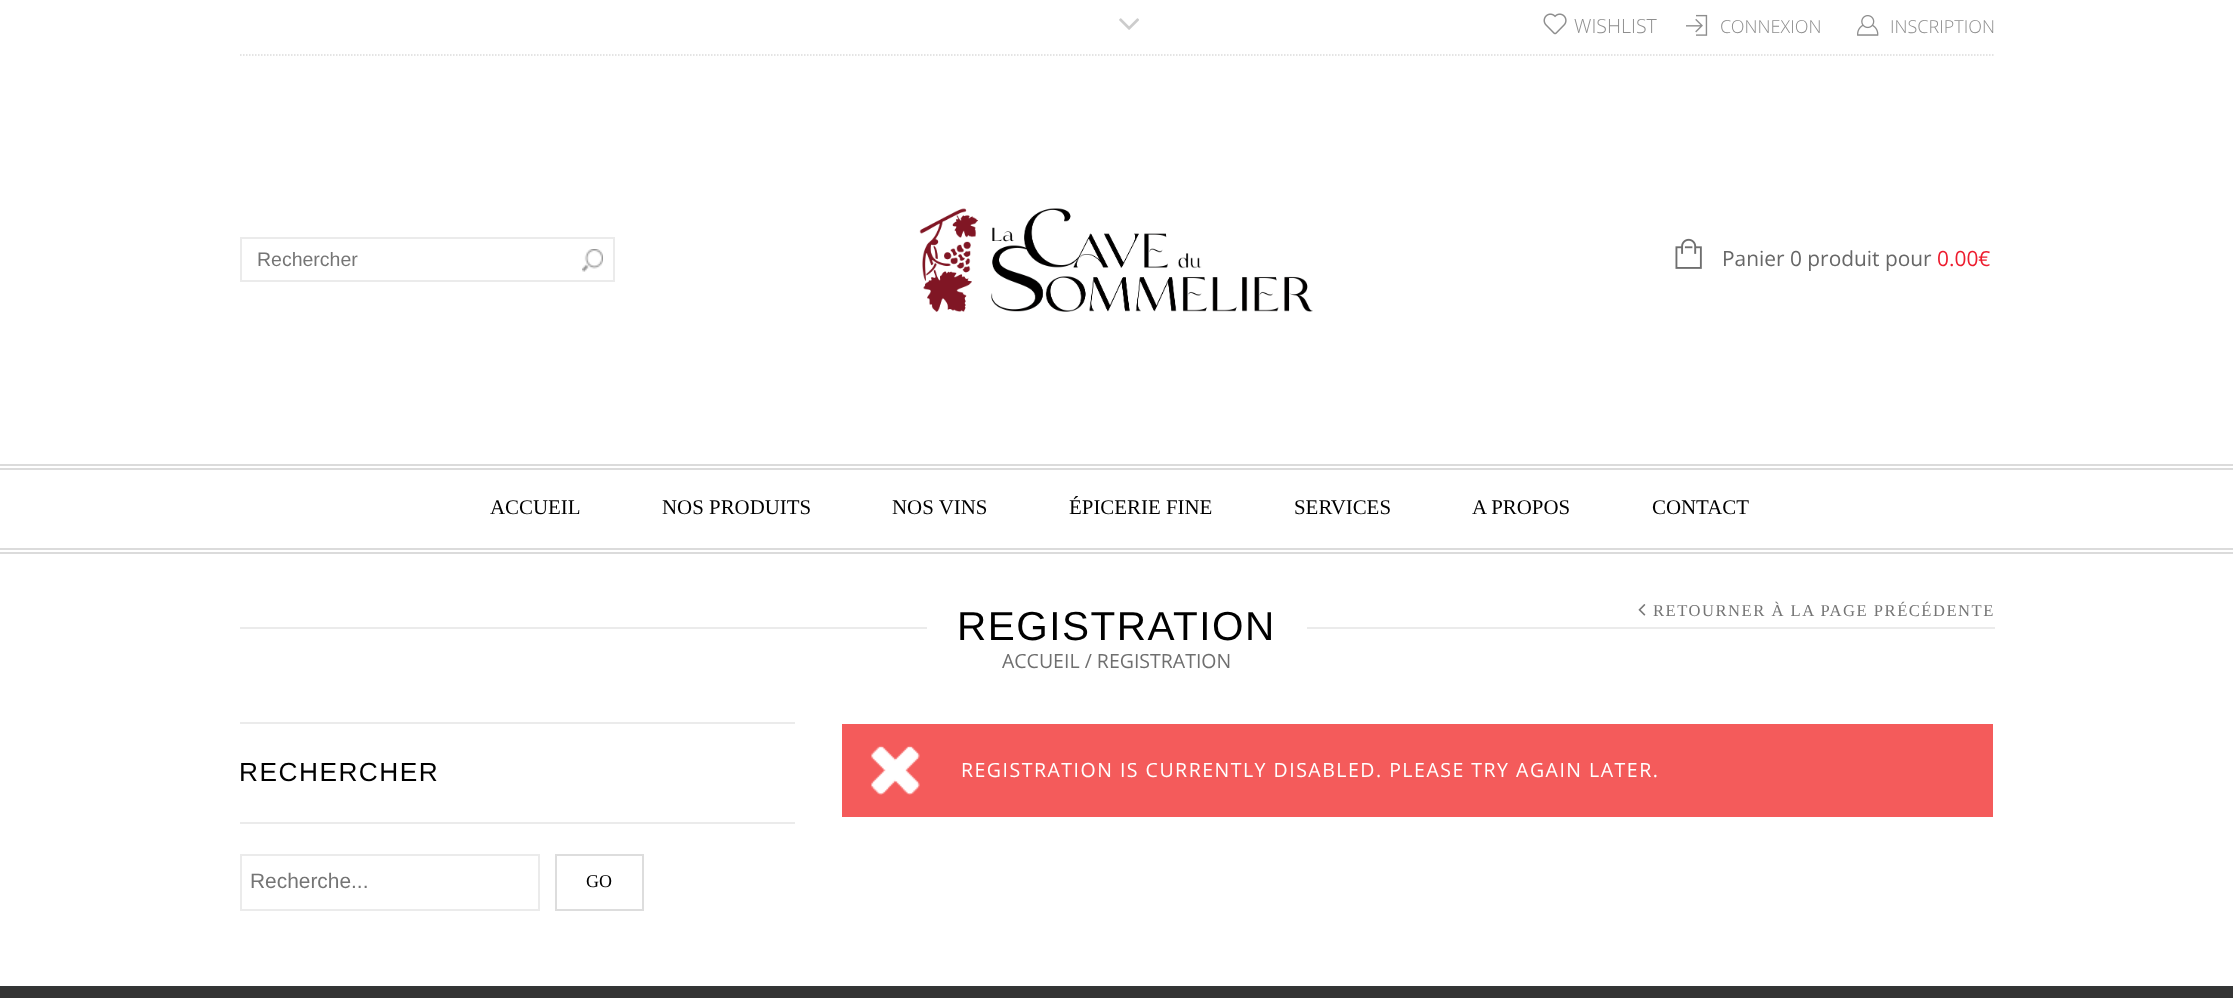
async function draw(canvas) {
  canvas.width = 2233
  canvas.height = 998
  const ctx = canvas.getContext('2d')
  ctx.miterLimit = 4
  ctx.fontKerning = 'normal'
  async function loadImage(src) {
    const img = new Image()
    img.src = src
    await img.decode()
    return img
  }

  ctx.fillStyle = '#fff'
  ctx.fillRect(0, 0, 2233, 998)
  ctx.beginPath()
  ctx.moveTo(240, 55)
  ctx.lineTo(1995, 55)
  ctx.strokeStyle = '#dbdbdb'
  ctx.lineWidth = 1.5
  ctx.setLineDash([1.5, 1.5])
  ctx.stroke()
  ctx.drawImage(await loadImage('image0.png'), 1119, 18, 20, 12)
  ctx.drawImage(await loadImage('image1.png'), 1543, 13, 24, 22)
  ctx.font = '300 19.5px Open Sans'
  ctx.fillStyle = '#8e8e8e'
  ctx.fillText('WISHLIST', 1574, 33)
  ctx.drawImage(await loadImage('image2.png'), 1686, 14, 22, 22)
  ctx.font = '300 18px Open Sans'
  ctx.fillText('CONNEXION', 1720, 33)
  ctx.drawImage(await loadImage('image3.png'), 1857, 15, 22, 21)
  ctx.fillText('INSCRIPTION', 1890, 33)
  ctx.strokeStyle = '#ebebeb'
  ctx.lineWidth = 2
  ctx.setLineDash([])
  ctx.strokeRect(241, 238, 373, 43)
  ctx.font = '19.5px Liberation Sans'
  ctx.fillStyle = '#757575'
  ctx.fillText('Rechercher', 257, 266)
  ctx.drawImage(await loadImage('image4.png'), 582, 249, 21, 23)
  ctx.drawImage(await loadImage('image5.png'), 919, 208, 394, 104)
  ctx.drawImage(await loadImage('image6.png'), 1675, 238, 27, 31)
  ctx.font = '20.9px Open Sans'
  ctx.fillStyle = '#676767'
  ctx.fillText('Panier 0 produit pour', 1722, 266)
  ctx.fillStyle = '#ed1c2e'
  ctx.fillText('0.00€', 1937, 266)
  ctx.fillStyle = '#dbdbdb'
  ctx.fillRect(0, 464, 2233, 2)
  ctx.fillRect(0, 552, 2233, 2)
  ctx.fillRect(0, 468, 2233, 2)
  ctx.fillRect(0, 548, 2233, 2)
  ctx.font = '20.9px Liberation Serif'
  ctx.fillStyle = '#000'
  ctx.fillText('ACCUEIL', 490, 514)
  ctx.fillText('NOS PRODUITS', 662, 514)
  ctx.fillText('NOS VINS', 892, 514)
  ctx.fillText('ÉPICERIE FINE', 1069, 514)
  ctx.fillText('SERVICES', 1294, 514)
  ctx.fillText('A PROPOS', 1472, 514)
  ctx.fillText('CONTACT', 1652, 514)
  ctx.drawImage(await loadImage('image7.png'), 1638, 604, 8, 12)
  ctx.letterSpacing = '1.5px'
  ctx.font = '16.6px Liberation Serif'
  ctx.fillStyle = '#757575'
  ctx.fillText('RETOURNER À LA PAGE PRÉCÉDENTE', 1653, 616)
  ctx.letterSpacing = '0px'
  ctx.font = '19.5px Open Sans'
  ctx.fillStyle = '#6f6f6f'
  ctx.fillText('ACCUEIL / REGISTRATION', 1002, 668)
  ctx.fillStyle = '#ebebeb'
  ctx.fillRect(240, 627, 1755, 2)
  ctx.fillStyle = '#fff'
  ctx.fillRect(927, 627, 380, 2)
  ctx.letterSpacing = '1.5px'
  ctx.font = '40.5px Liberation Sans'
  ctx.fillStyle = '#000'
  ctx.fillText('REGISTRATION', 957, 640)
  ctx.fillStyle = '#ebebeb'
  ctx.fillRect(240, 722, 555, 2)
  ctx.fillRect(240, 822, 555, 2)
  ctx.font = '26.25px Liberation Sans'
  ctx.fillStyle = '#000'
  ctx.fillText('RECHERCHER', 239, 781)
  ctx.strokeRect(241, 855, 298, 55)
  ctx.letterSpacing = '0px'
  ctx.font = '20.9px Liberation Sans'
  ctx.fillStyle = '#757575'
  ctx.fillText('Recherche...', 250, 888)
  ctx.strokeStyle = '#ddd'
  ctx.strokeRect(556, 855, 87, 55)
  ctx.font = '18px Liberation Serif'
  ctx.fillStyle = '#000'
  ctx.fillText('GO', 586, 887)
  ctx.fillStyle = '#f45b5b'
  ctx.fillRect(842, 724, 1151, 93)
  ctx.drawImage(await loadImage('image8.png'), 871, 745, 49, 50)
  ctx.letterSpacing = '1.5px'
  ctx.font = '19.5px Open Sans'
  ctx.fillStyle = '#fff'
  ctx.fillText('REGISTRATION IS CURRENTLY DISABLED. PLEASE TRY AGAIN LATER.', 961, 777)
  ctx.fillStyle = '#343434'
  ctx.fillRect(0, 988, 2233, 10)
  ctx.fillStyle = '#333536'
  ctx.fillRect(0, 986, 2233, 2)
}

draw(document.querySelector('canvas'))
